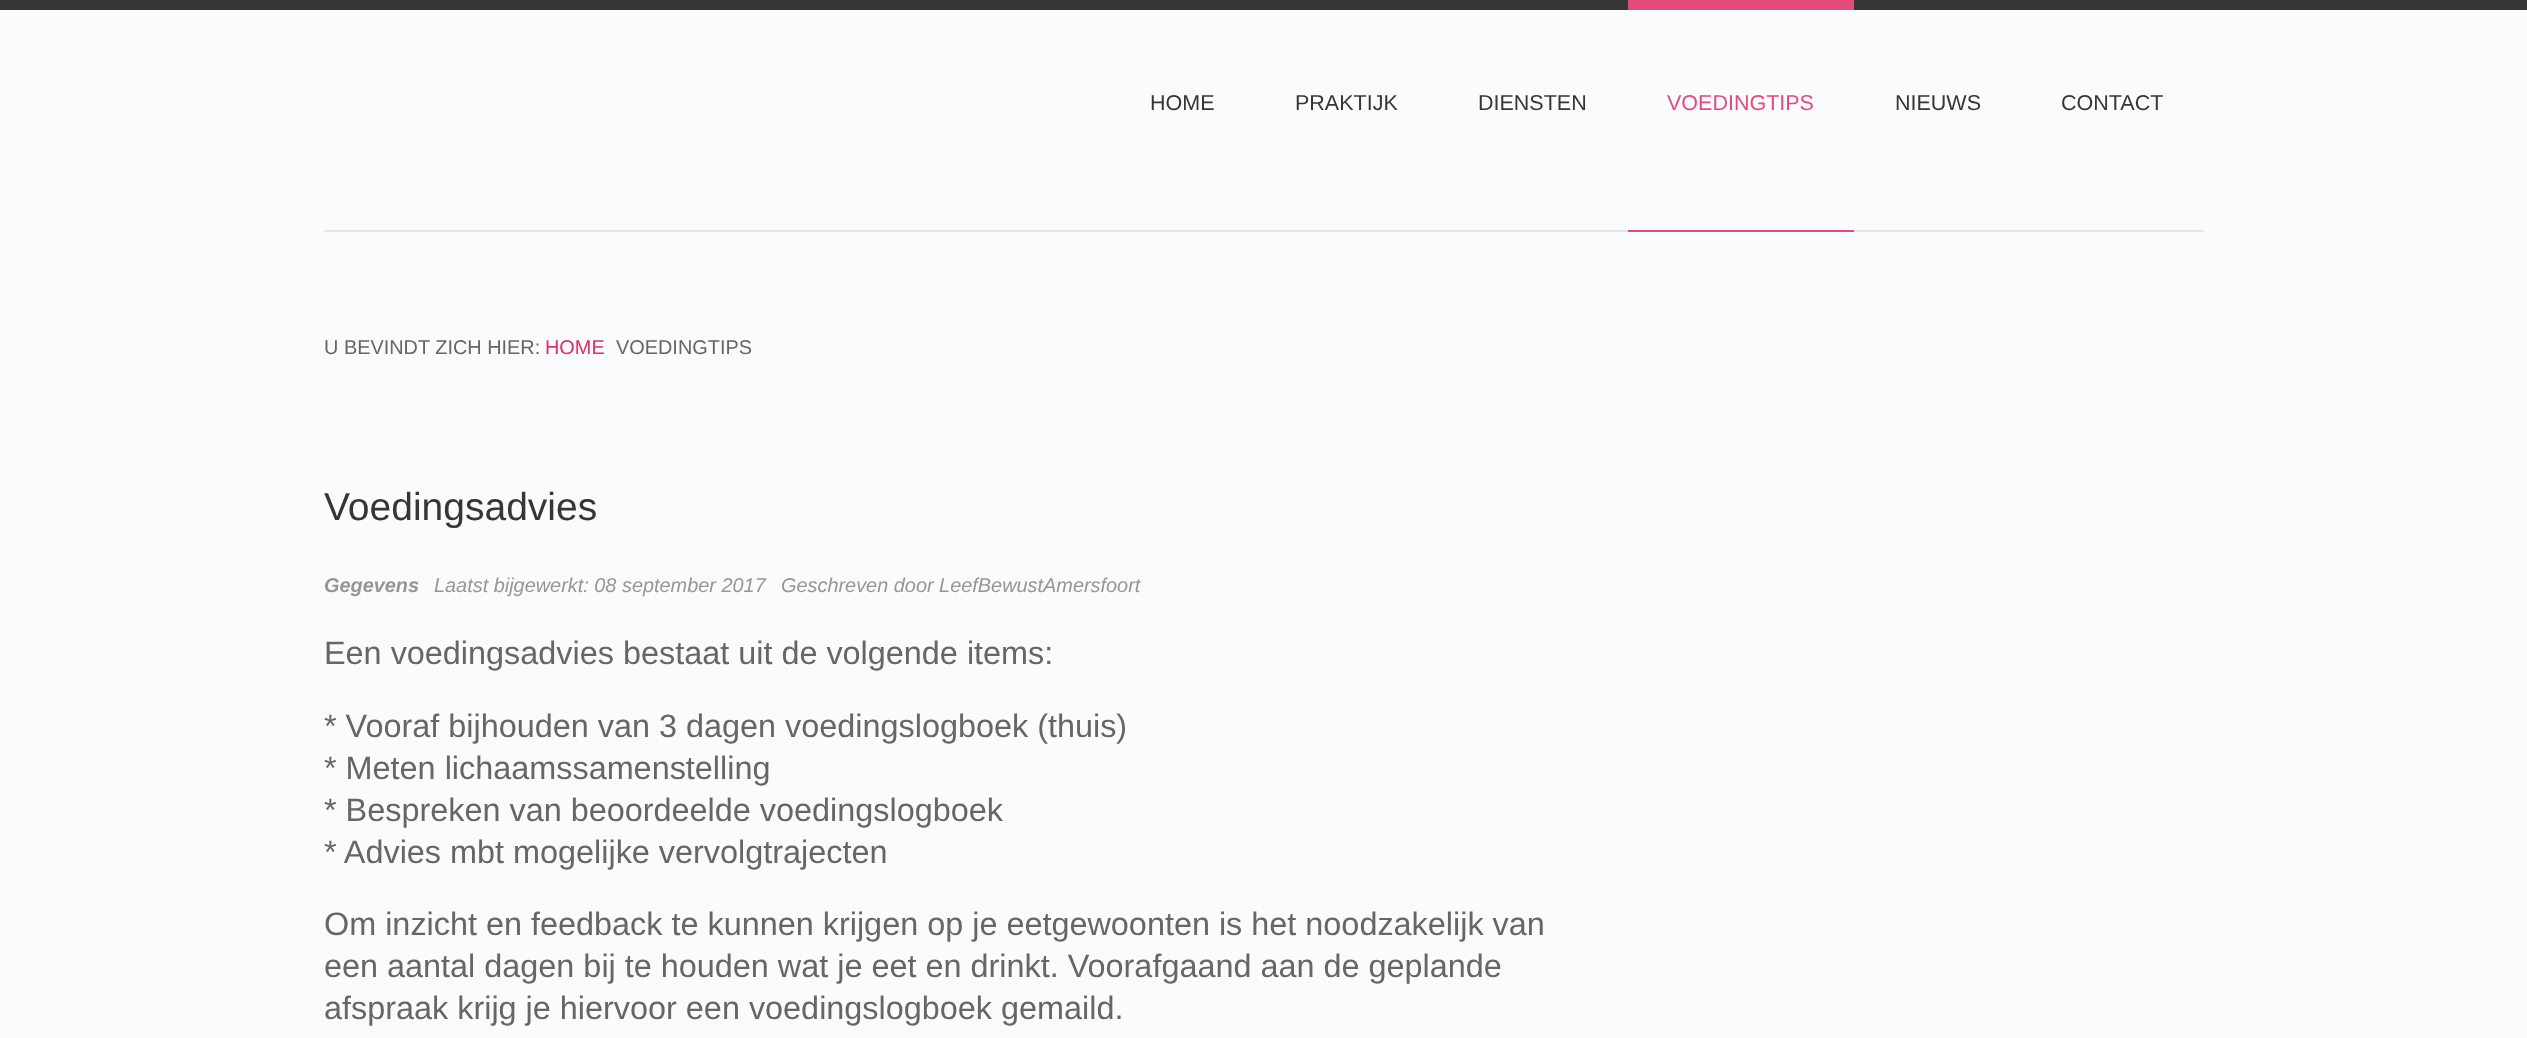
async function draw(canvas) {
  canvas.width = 2527
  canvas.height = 1038
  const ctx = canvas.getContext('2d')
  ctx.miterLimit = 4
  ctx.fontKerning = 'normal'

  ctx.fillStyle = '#fafbfc'
  ctx.fillRect(0, 0, 2527, 1038)
  ctx.fillStyle = '#353637'
  ctx.fillRect(0, 0, 2527, 10)
  ctx.fillStyle = '#e5e6e7'
  ctx.fillRect(324, 230, 1880, 2)
  ctx.font = '21.5px Liberation Sans'
  ctx.fillStyle = '#353637'
  ctx.fillText('HOME', 1150, 110)
  ctx.fillText('PRAKTIJK', 1295, 110)
  ctx.fillText('DIENSTEN', 1478, 110)
  ctx.fillStyle = '#e24b7c'
  ctx.fillRect(1628, 0, 226, 10)
  ctx.fillRect(1628, 230, 226, 2)
  ctx.fillText('VOEDINGTIPS', 1667, 110)
  ctx.fillStyle = '#353637'
  ctx.fillText('NIEUWS', 1895, 110)
  ctx.fillText('CONTACT', 2061, 110)
  ctx.font = '19.9px Liberation Sans'
  ctx.fillStyle = '#656667'
  ctx.fillText('U BEVINDT ZICH HIER:', 324, 354)
  ctx.fillStyle = '#de3068'
  ctx.fillText('HOME', 545, 354)
  ctx.fillStyle = '#656667'
  ctx.fillText('VOEDINGTIPS', 616, 354)
  ctx.font = '39px Liberation Sans'
  ctx.fillStyle = '#353637'
  ctx.fillText('Voedingsadvies', 324, 520)
  ctx.font = 'italic bold 19.9px Liberation Sans'
  ctx.fillStyle = '#959697'
  ctx.fillText('Gegevens', 324, 592)
  ctx.font = 'italic 19.9px Liberation Sans'
  ctx.fillText('Laatst bijgewerkt: 08 september 2017', 434, 592)
  ctx.fillText('Geschreven door LeefBewustAmersfoort', 781, 592)
  ctx.font = '32.4px Liberation Sans'
  ctx.fillStyle = '#656667'
  ctx.fillText('Een voedingsadvies bestaat uit de volgende items:', 324, 664)
  ctx.fillText('* Vooraf bijhouden van 3 dagen voedingslogboek (thuis)', 324, 737)
  ctx.fillText('* Meten lichaamssamenstelling', 324, 779)
  ctx.fillText('* Bespreken van beoordeelde voedingslogboek', 324, 821)
  ctx.fillText('* Advies mbt mogelijke vervolgtrajecten', 324, 863)
  ctx.fillText('Om inzicht en feedback te kunnen krijgen op je eetgewoonten is het noodzakelijk van', 324, 935)
  ctx.fillText('een aantal dagen bij te houden wat je eet en drinkt. Voorafgaand aan de geplande', 324, 977)
  ctx.fillText('afspraak krijg je hiervoor een voedingslogboek gemaild.', 324, 1019)
}

draw(document.querySelector('canvas'))
